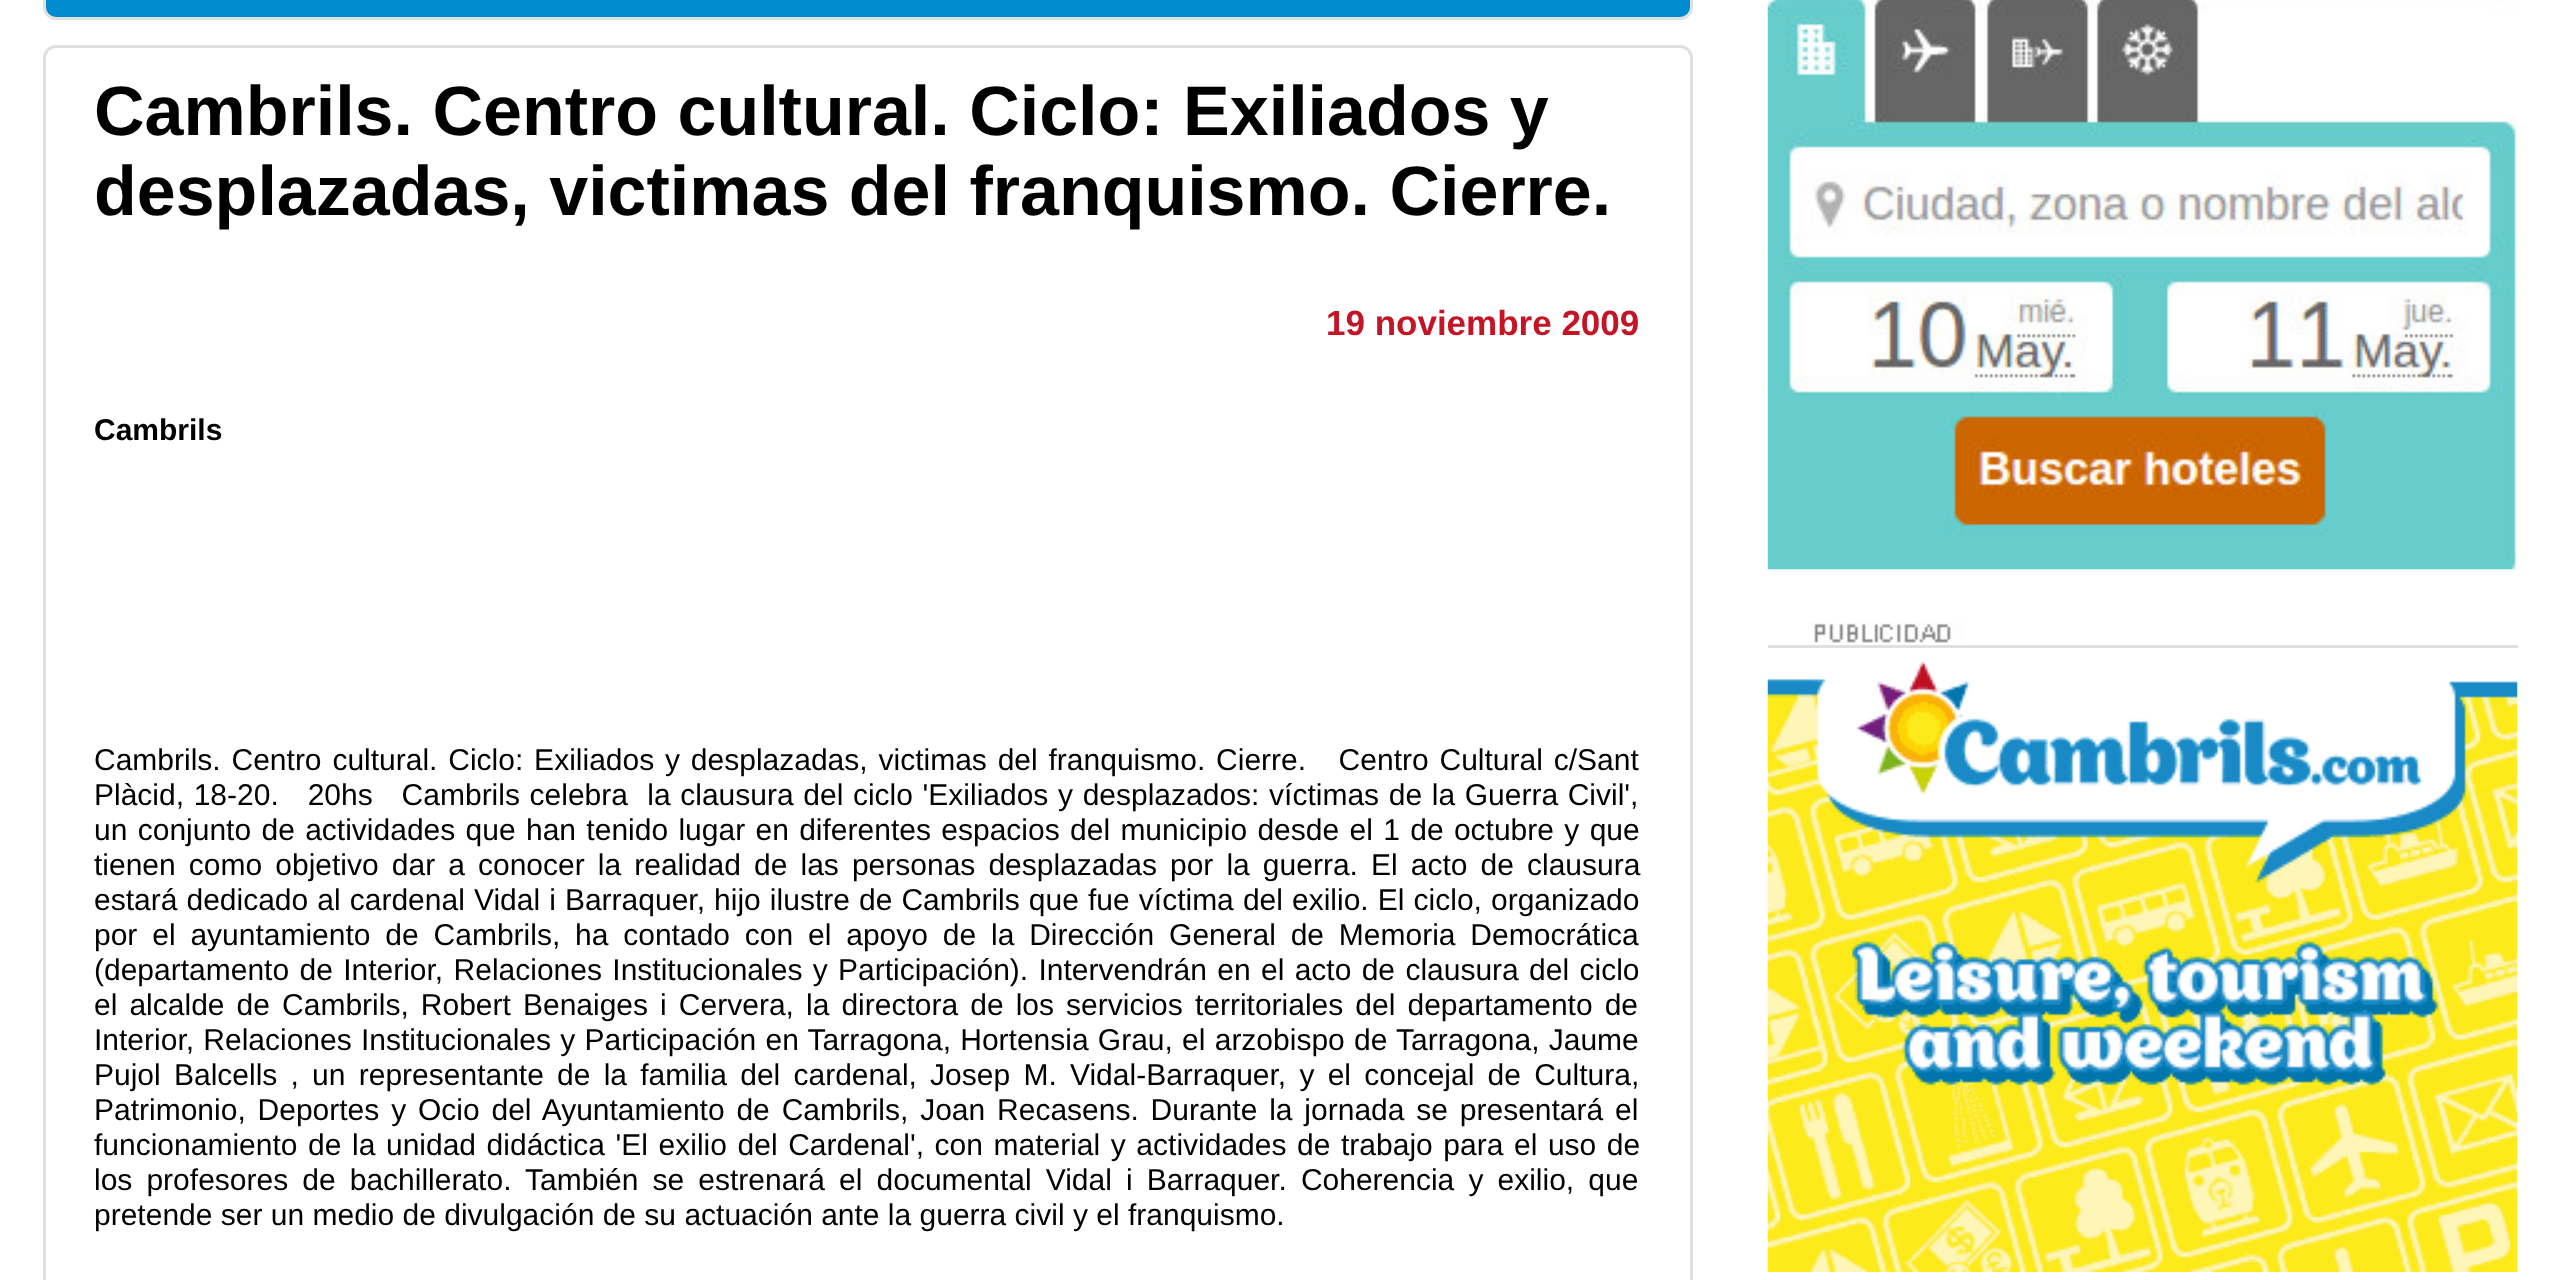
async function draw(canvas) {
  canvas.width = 2556
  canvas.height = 1280
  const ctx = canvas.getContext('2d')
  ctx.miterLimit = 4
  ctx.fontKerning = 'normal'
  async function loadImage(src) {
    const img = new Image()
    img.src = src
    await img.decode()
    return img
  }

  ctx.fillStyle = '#fff'
  ctx.fillRect(0, 0, 2556, 1280)
  ctx.fillStyle = '#008bcf'
  ctx.beginPath()
  ctx.roundRect(44.5, -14.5, 1647, 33, 11.5)
  ctx.fill()
  ctx.strokeStyle = '#e0e0e0'
  ctx.lineWidth = 3
  ctx.stroke()
  ctx.beginPath()
  ctx.roundRect(44.5, 46.5, 1647, 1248, 11.5)
  ctx.stroke()
  ctx.font = 'bold 70px Liberation Sans'
  ctx.fillStyle = '#000'
  ctx.fillText('Cambrils. Centro cultural. Ciclo: Exiliados y', 94, 135)
  ctx.fillText('desplazadas, victimas del franquismo. Cierre.', 94, 215)
  ctx.font = 'bold 35px Liberation Sans'
  ctx.fillStyle = '#c41527'
  ctx.fillText('19 noviembre 2009', 1326, 335)
  ctx.font = 'bold 30px Liberation Sans'
  ctx.fillStyle = '#000'
  ctx.fillText('Cambrils', 94, 440)
  ctx.wordSpacing = '2.5px'
  ctx.font = '30px Liberation Sans'
  ctx.fillText('Cambrils. Centro cultural. Ciclo: Exiliados y desplazadas, victimas del franquismo. Cierre.   Centro Cultural c/Sant', 94, 770)
  ctx.wordSpacing = '1.3px'
  ctx.fillText('Plàcid, 18-20.   20hs   Cambrils celebra  la clausura del ciclo \'Exiliados y desplazados: víctimas de la Guerra Civil\',', 94, 805)
  ctx.wordSpacing = '2px'
  ctx.fillText('un conjunto de actividades que han tenido lugar en diferentes espacios del municipio desde el 1 de octubre y que', 94, 840)
  ctx.wordSpacing = '4.75px'
  ctx.fillText('tienen como objetivo dar a conocer la realidad de las personas desplazadas por la guerra. El acto de clausura', 94, 875)
  ctx.wordSpacing = '0.75px'
  ctx.fillText('estará dedicado al cardenal Vidal i Barraquer, hijo ilustre de Cambrils que fue víctima del exilio. El ciclo, organizado', 94, 910)
  ctx.wordSpacing = '6.5px'
  ctx.fillText('por el ayuntamiento de Cambrils, ha contado con el apoyo de la Dirección General de Memoria Democrática', 94, 945)
  ctx.wordSpacing = '2px'
  ctx.fillText('(departamento de Interior, Relaciones Institucionales y Participación). Intervendrán en el acto de clausura del ciclo', 94, 980)
  ctx.wordSpacing = '3.75px'
  ctx.fillText('el alcalde de Cambrils, Robert Benaiges i Cervera, la directora de los servicios territoriales del departamento de', 94, 1015)
  ctx.wordSpacing = '0.9px'
  ctx.fillText('Interior, Relaciones Institucionales y Participación en Tarragona, Hortensia Grau, el arzobispo de Tarragona, Jaume', 94, 1050)
  ctx.wordSpacing = '4.9px'
  ctx.fillText('Pujol Balcells , un representante de la familia del cardenal, Josep M. Vidal-Barraquer, y el concejal de Cultura,', 94, 1085)
  ctx.wordSpacing = '3.5px'
  ctx.fillText('Patrimonio, Deportes y Ocio del Ayuntamiento de Cambrils, Joan Recasens. Durante la jornada se presentará el', 94, 1120)
  ctx.wordSpacing = '2.25px'
  ctx.fillText('funcionamiento de la unidad didáctica \'El exilio del Cardenal\', con material y actividades de trabajo para el uso de', 94, 1155)
  ctx.wordSpacing = '5.75px'
  ctx.fillText('los profesores de bachillerato. También se estrenará el documental Vidal i Barraquer. Coherencia y exilio, que', 94, 1190)
  ctx.wordSpacing = '0px'
  ctx.fillText('pretende ser un medio de divulgación de su actuación ante la guerra civil y el franquismo.', 94, 1225)
  ctx.drawImage(await loadImage('image0.png'), 1767, 0, 751, 570)
  ctx.drawImage(await loadImage('image1.png'), 1810, 622, 154, 21)
  ctx.fillStyle = '#e0e0e0'
  ctx.fillRect(1768, 645, 750, 3)
  ctx.drawImage(await loadImage('image2.png'), 1767, 661, 751, 611)
}

draw(document.querySelector('canvas'))
